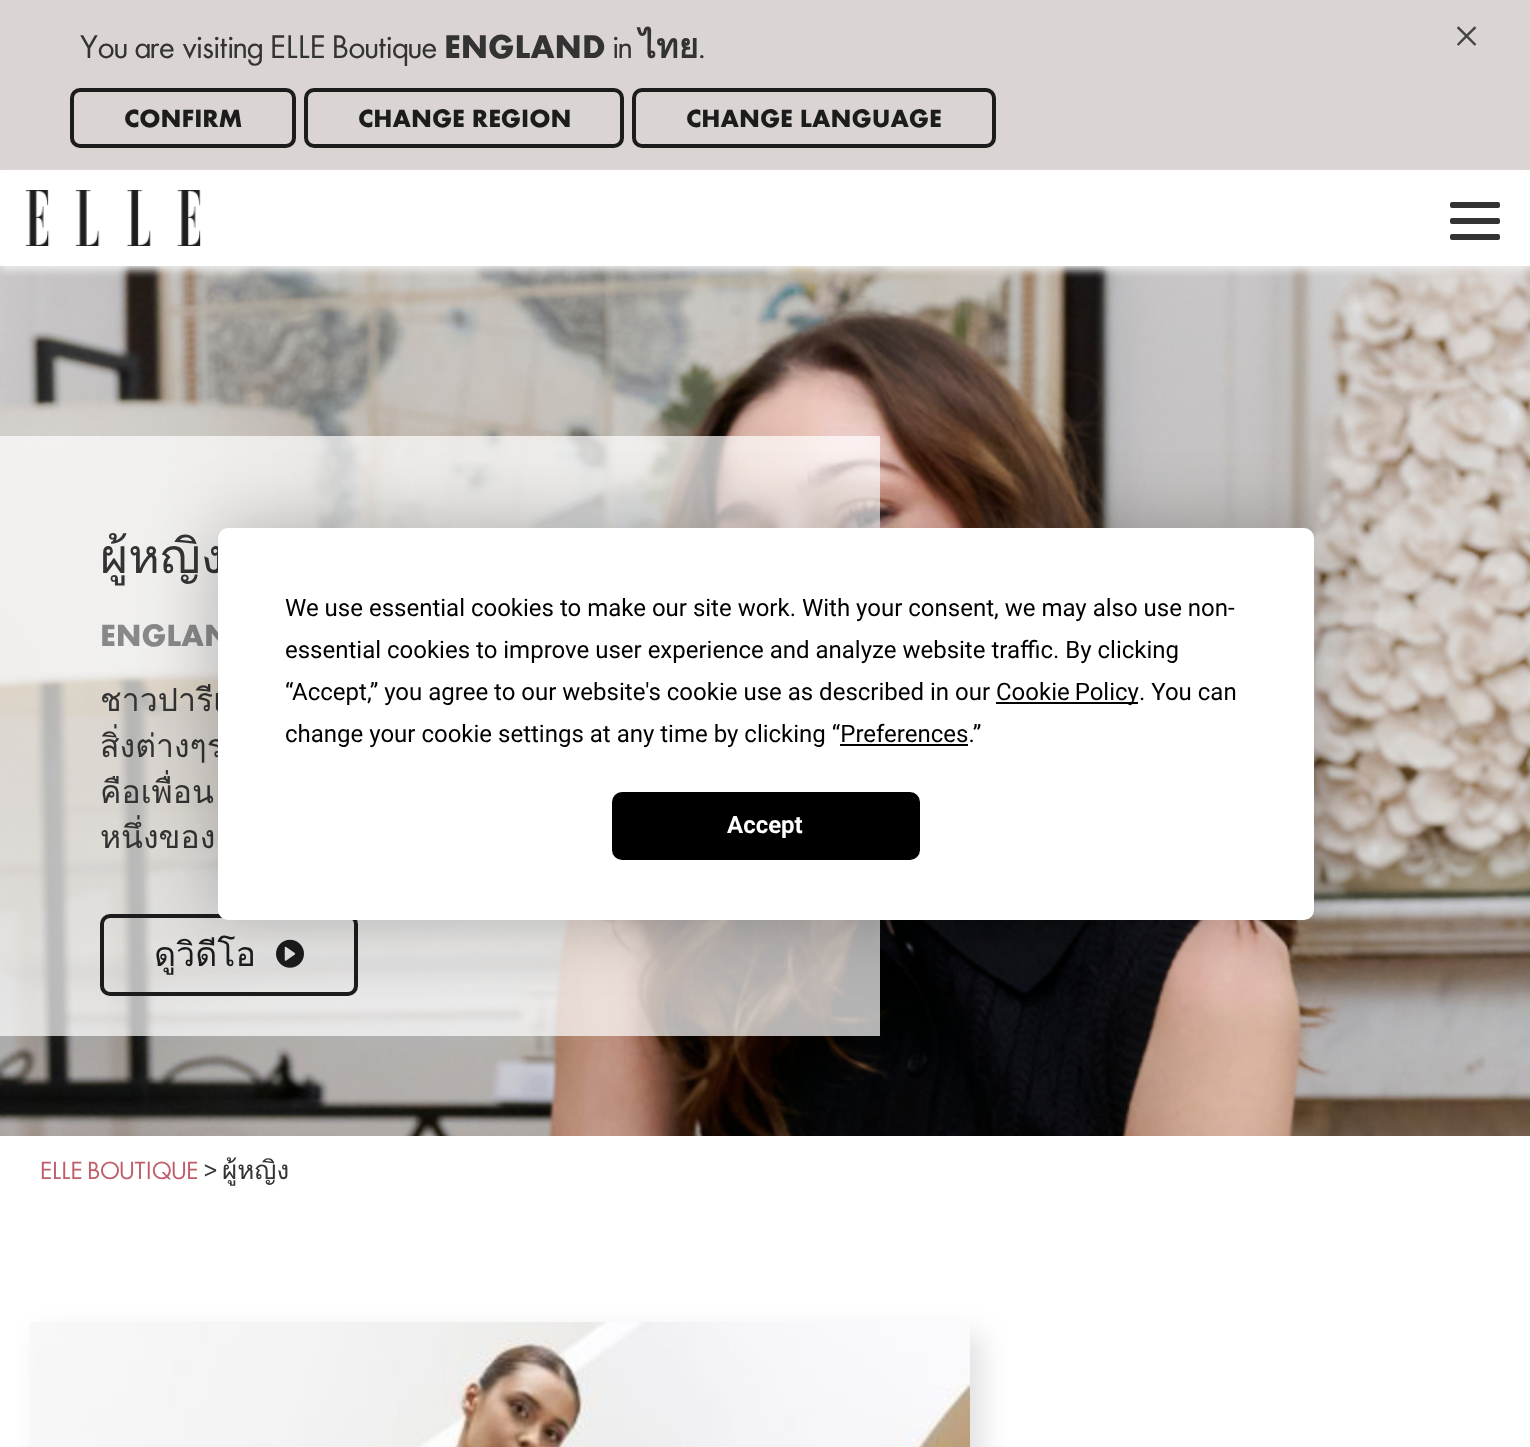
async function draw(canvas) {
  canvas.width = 1530
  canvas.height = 1447
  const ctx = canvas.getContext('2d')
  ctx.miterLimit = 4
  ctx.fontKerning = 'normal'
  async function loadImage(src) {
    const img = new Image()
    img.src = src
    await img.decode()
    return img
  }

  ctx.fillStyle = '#fff'
  ctx.fillRect(0, 0, 1530, 1447)
  ctx.fillStyle = '#dad4d2'
  ctx.fillRect(0, 0, 1530, 170)
  ctx.font = '34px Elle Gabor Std'
  ctx.fillStyle = '#333'
  ctx.fillText('You are visiting ELLE Boutique', 80, 58)
  ctx.font = 'bold 34px Elle Gabor Std'
  ctx.fillText('ENGLAND', 444, 58)
  ctx.font = '34px Elle Gabor Std'
  ctx.fillText('in', 613, 58)
  ctx.font = 'bold 34px Loma'
  ctx.fillText('ไทย', 639, 58)
  ctx.font = '34px Elle Gabor Std'
  ctx.fillText('.', 698, 58)
  ctx.beginPath()
  ctx.roundRect(72, 90, 222, 56, 8)
  ctx.strokeStyle = '#1c1c1c'
  ctx.lineWidth = 4
  ctx.stroke()
  ctx.font = 'bold 26px Elle Gabor Std'
  ctx.fillStyle = '#1c1c1c'
  ctx.fillText('CONFIRM', 124, 127)
  ctx.beginPath()
  ctx.roundRect(306, 90, 316, 56, 8)
  ctx.stroke()
  ctx.fillText('CHANGE REGION', 358, 127)
  ctx.beginPath()
  ctx.roundRect(634, 90, 360, 56, 8)
  ctx.stroke()
  ctx.fillText('CHANGE LANGUAGE', 686, 127)
  ctx.font = '48px Liberation Serif'
  ctx.fillStyle = '#444'
  ctx.fillText('×', 1453, 52)
  ctx.drawImage(await loadImage('image1.png'), 0, 266, 1530, 870)
  ctx.save()
  ctx.beginPath()
  ctx.moveTo(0, 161)
  ctx.lineTo(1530, 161)
  ctx.lineTo(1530, 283)
  ctx.lineTo(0, 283)
  ctx.closePath()
  ctx.moveTo(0, 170)
  ctx.lineTo(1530, 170)
  ctx.lineTo(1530, 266)
  ctx.lineTo(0, 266)
  ctx.closePath()
  ctx.clip('evenodd')
  ctx.fillStyle = '#eee'
  ctx.filter = 'blur(4px)'
  ctx.beginPath()
  ctx.rect(0, 174, 1530, 96)
  ctx.fill()
  ctx.filter = 'none'
  ctx.restore()
  ctx.drawImage(await loadImage('image0.png'), 25, 190, 176, 56)
  ctx.fillStyle = '#333'
  ctx.beginPath()
  ctx.roundRect(1450, 218, 50, 6, 2)
  ctx.fill()
  ctx.beginPath()
  ctx.roundRect(1450, 202, 50, 6, 2)
  ctx.fill()
  ctx.beginPath()
  ctx.roundRect(1450, 234, 50, 6, 2)
  ctx.fill()
  ctx.fillStyle = '#ffffffb3'
  ctx.fillRect(0, 436, 880, 600)
  ctx.font = '48px Loma'
  ctx.fillStyle = '#333'
  ctx.fillText('ผู้หญิง', 100, 573)
  ctx.font = 'bold 32px Elle Gabor Std'
  ctx.fillStyle = '#888'
  ctx.fillText('ENGLAN', 100, 646)
  ctx.font = '32px Loma'
  ctx.fillStyle = '#333'
  ctx.fillText('ชาวปารีเ', 100, 711)
  ctx.wordSpacing = '-2px'
  ctx.fillText('สิ่งต่างๆร', 100, 757)
  ctx.wordSpacing = '0px'
  ctx.fillText('คือเพื่อน', 100, 803)
  ctx.fillText('หนึ่งของ', 100, 848)
  ctx.beginPath()
  ctx.roundRect(102, 916, 254, 78, 8)
  ctx.stroke()
  ctx.font = '34px Loma'
  ctx.fillStyle = '#1c1c1c'
  ctx.fillText('ดูวิดีโอ', 154, 966)
  ctx.drawImage(await loadImage('image2.png'), 276, 939, 28, 29)
  ctx.font = '26px Elle Gabor Std'
  ctx.fillStyle = '#bf5e6a'
  ctx.fillText('ELLE BOUTIQUE', 40, 1179)
  ctx.fillStyle = '#333'
  ctx.fillText('>', 204, 1179)
  ctx.font = '26px Loma'
  ctx.fillText('ผู้หญิง', 222, 1179)
  ctx.fillStyle = '#0000001f'
  ctx.filter = 'blur(14px)'
  ctx.beginPath()
  ctx.rect(42, 1334, 940, 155)
  ctx.fill()
  ctx.filter = 'none'
  ctx.drawImage(await loadImage('image3.png'), 30, 1322, 940, 125)
  ctx.fillStyle = '#00000040'
  ctx.filter = 'blur(35px)'
  ctx.beginPath()
  ctx.roundRect(218, 528, 1096, 392, 10)
  ctx.fill()
  ctx.filter = 'none'
  ctx.fillStyle = '#fff'
  ctx.beginPath()
  ctx.roundRect(218, 528, 1096, 392, 10)
  ctx.fill()
  ctx.font = '24px Roboto'
  ctx.fillStyle = '#000'
  ctx.fillText('We use essential cookies to make our site work. With your consent, we may also use non-', 285, 616)
  ctx.fillText('essential cookies to improve user experience and analyze website traffic. By clicking', 285, 658)
  ctx.fillText('“Accept,” you agree to our website\'s cookie use as described in our', 285, 700)
  ctx.fillRect(996, 702, 142, 2)
  ctx.wordSpacing = '-1px'
  ctx.fillText('Cookie Policy', 996, 700)
  ctx.wordSpacing = '0px'
  ctx.fillText('. You can', 1139, 700)
  ctx.fillText('change your cookie settings at any time by clicking “Preferences.”', 285, 742)
  ctx.fillRect(840, 744, 128, 2)
  ctx.beginPath()
  ctx.roundRect(613, 793, 306, 66, 9)
  ctx.fill()
  ctx.strokeStyle = '#000'
  ctx.lineWidth = 2
  ctx.stroke()
  ctx.font = 'bold 24px Roboto'
  ctx.fillStyle = '#fff'
  ctx.fillText('Accept', 727, 833)
}

draw(document.querySelector('canvas'))
